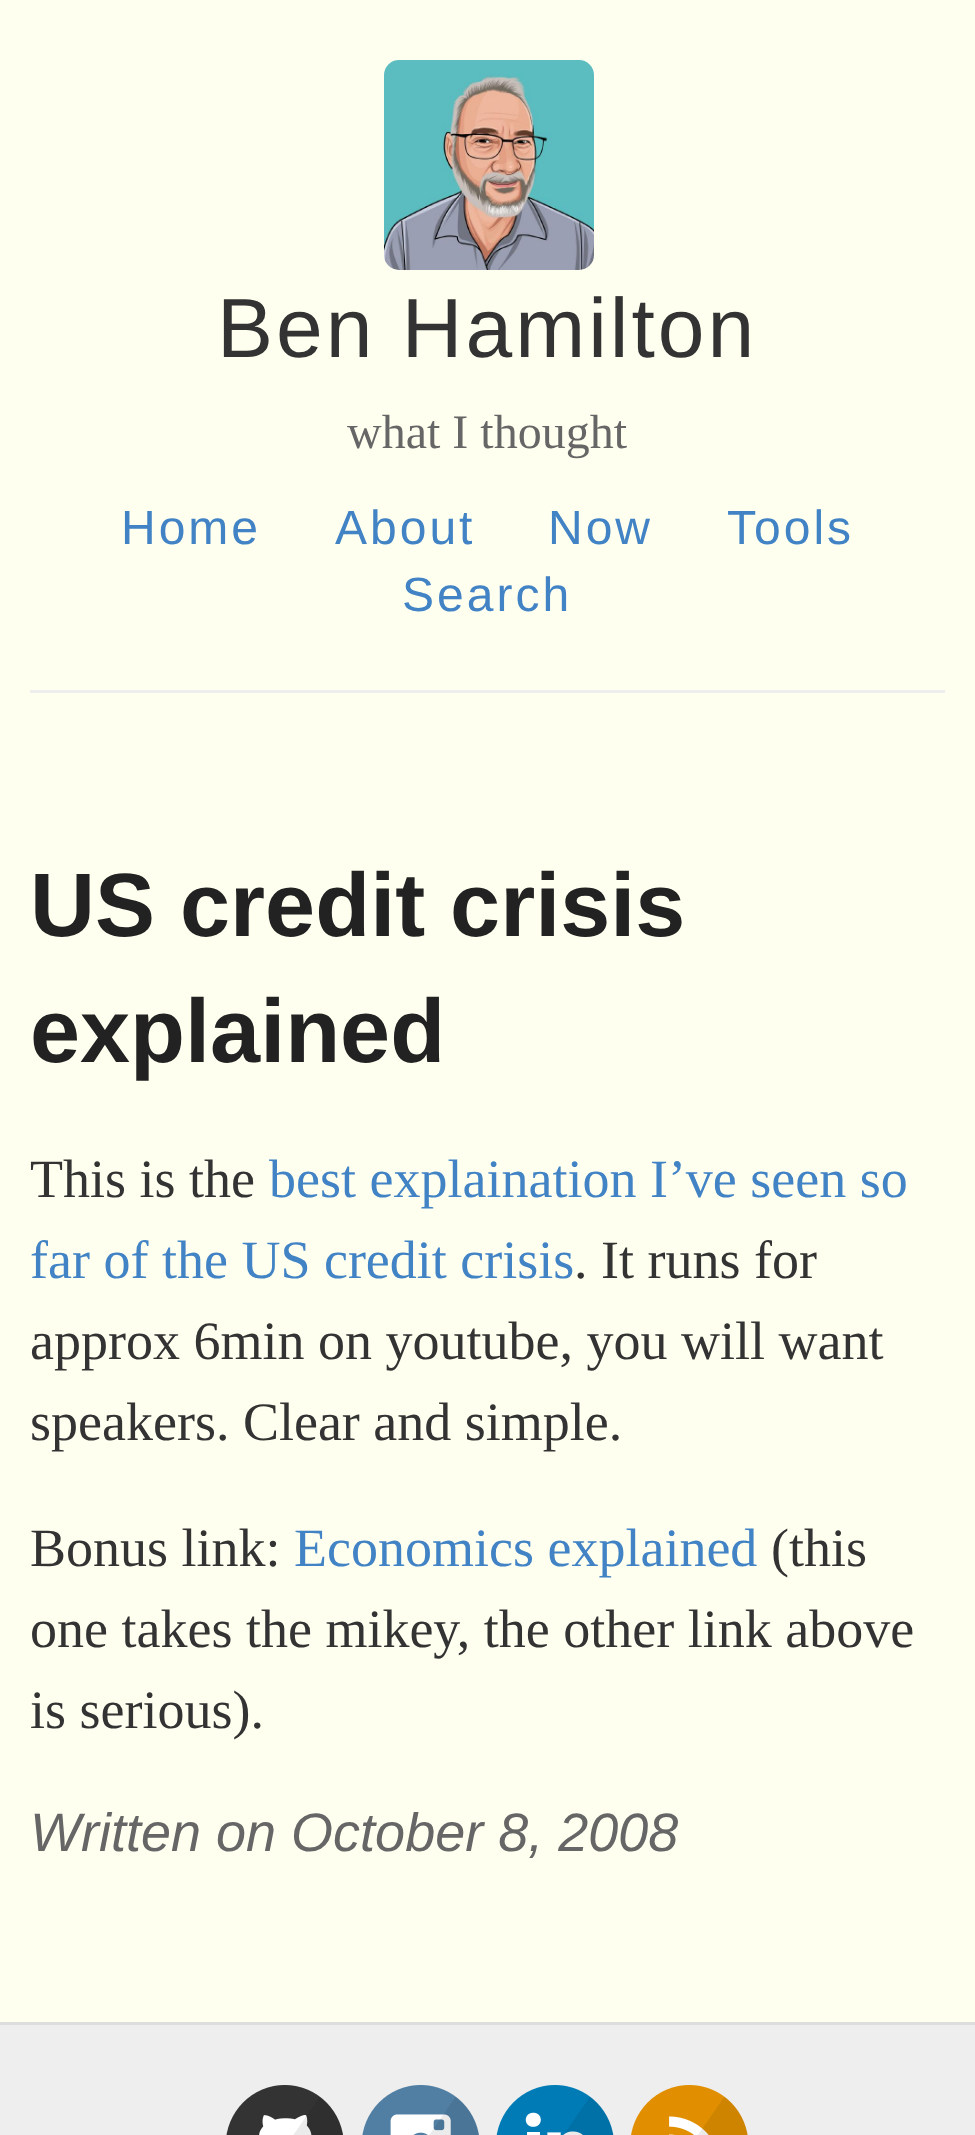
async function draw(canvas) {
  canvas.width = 975
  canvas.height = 2135
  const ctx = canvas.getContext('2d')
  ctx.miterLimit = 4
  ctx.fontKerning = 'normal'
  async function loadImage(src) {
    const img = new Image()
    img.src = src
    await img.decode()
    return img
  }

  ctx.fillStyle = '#fffff0'
  ctx.fillRect(0, 0, 975, 2135)
  ctx.fillStyle = '#eee'
  ctx.fillRect(30, 690, 915, 3)
  ctx.drawImage(await loadImage('image0.png'), 384, 60, 210, 210)
  ctx.letterSpacing = '3px'
  ctx.font = '84px Liberation Sans'
  ctx.fillStyle = '#333'
  ctx.fillText('Ben Hamilton', 217, 357)
  ctx.letterSpacing = '0px'
  ctx.font = '48px Liberation Serif'
  ctx.fillStyle = '#666'
  ctx.fillText('what I thought', 347, 448)
  ctx.letterSpacing = '3px'
  ctx.font = '48px Liberation Sans'
  ctx.fillStyle = '#4183c4'
  ctx.fillText('Home', 121, 544)
  ctx.fillText('About', 335, 544)
  ctx.fillText('Now', 548, 544)
  ctx.fillText('Tools', 727, 544)
  ctx.fillText('Search', 402, 611)
  ctx.letterSpacing = '0px'
  ctx.font = 'bold 90px Liberation Sans'
  ctx.fillStyle = '#222'
  ctx.fillText('US credit crisis', 30, 936)
  ctx.fillText('explained', 30, 1062)
  ctx.font = '54px Liberation Serif'
  ctx.fillStyle = '#333'
  ctx.fillText('This is the', 30, 1197)
  ctx.fillStyle = '#4183c4'
  ctx.fillText('best explaination I’ve seen so', 269, 1197)
  ctx.fillText('far of the US credit crisis', 30, 1278)
  ctx.fillStyle = '#333'
  ctx.fillText('. It runs for', 574, 1278)
  ctx.fillText('approx 6min on youtube, you will want', 30, 1359)
  ctx.fillText('speakers. Clear and simple.', 30, 1440)
  ctx.fillText('Bonus link:', 30, 1566)
  ctx.fillStyle = '#4183c4'
  ctx.fillText('Economics explained', 294, 1566)
  ctx.fillStyle = '#333'
  ctx.fillText('(this', 771, 1566)
  ctx.fillText('one takes the mikey, the other link above', 30, 1647)
  ctx.fillText('is serious).', 30, 1728)
  ctx.font = 'italic 54px Liberation Sans'
  ctx.fillStyle = '#666'
  ctx.fillText('Written on October 8, 2008', 30, 1851)
  ctx.fillStyle = '#eee'
  ctx.fillRect(0, 2025, 975, 110)
  ctx.fillStyle = '#ddd'
  ctx.fillRect(0, 2022, 975, 3)
  ctx.drawImage(await loadImage('image1.png'), 226, 2085, 117, 50)
  ctx.drawImage(await loadImage('image2.png'), 362, 2085, 117, 50)
  ctx.drawImage(await loadImage('image3.png'), 496, 2085, 118, 50)
  ctx.drawImage(await loadImage('image4.png'), 631, 2085, 117, 50)
}

draw(document.querySelector('canvas'))
